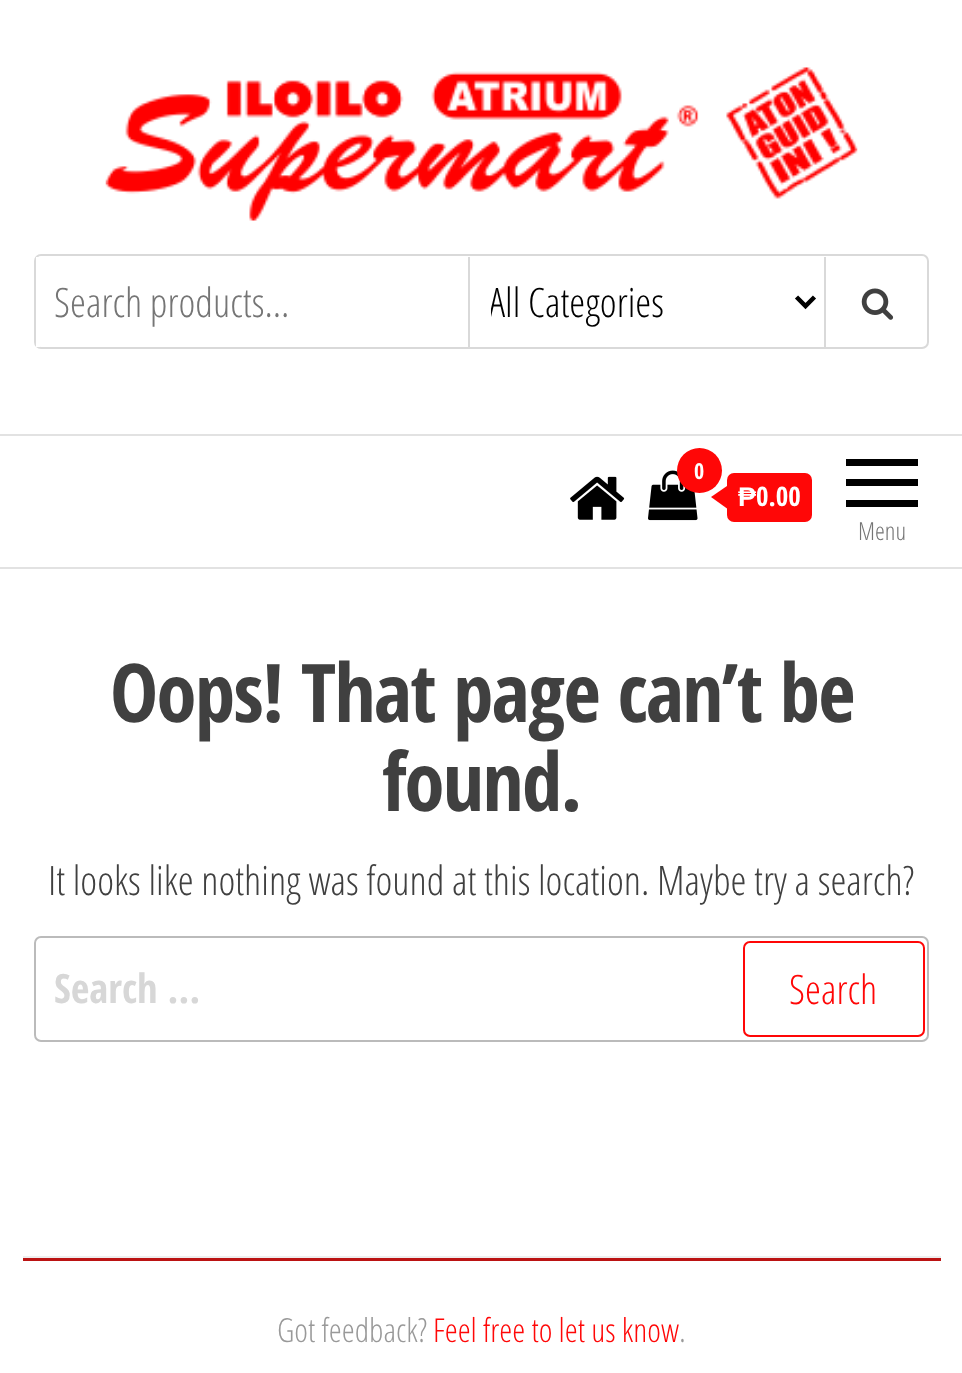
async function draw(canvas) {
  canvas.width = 962
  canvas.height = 1373
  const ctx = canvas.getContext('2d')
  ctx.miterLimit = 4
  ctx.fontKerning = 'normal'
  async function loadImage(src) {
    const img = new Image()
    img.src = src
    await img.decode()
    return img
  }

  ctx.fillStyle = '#fff'
  ctx.fillRect(0, 0, 962, 1373)
  ctx.drawImage(await loadImage('image0.png'), 105, 67, 753, 154)
  ctx.beginPath()
  ctx.roundRect(35, 255, 893, 93, 6)
  ctx.strokeStyle = '#d9d9d9'
  ctx.lineWidth = 2
  ctx.stroke()
  ctx.fillRect(36, 257, 4, 90)
  ctx.fillStyle = '#d9d9d9'
  ctx.fillRect(468, 257, 2, 90)
  ctx.font = '300 40.5px Open Sans Condensed'
  ctx.fillStyle = '#757575'
  ctx.fillText('Search products...', 54, 317)
  ctx.beginPath()
  ctx.moveTo(796.5, 297)
  ctx.lineTo(805.5, 306)
  ctx.lineTo(814.5, 297)
  ctx.strokeStyle = '#000'
  ctx.lineWidth = 4.5
  ctx.stroke()
  ctx.save()
  ctx.beginPath()
  ctx.rect(491, 272, 285, 59)
  ctx.clip()
  ctx.fillStyle = '#000'
  ctx.fillText('All Categories', 489, 317)
  ctx.restore()
  ctx.fillStyle = '#d9d9d9'
  ctx.fillRect(824, 257, 2, 90)
  ctx.drawImage(await loadImage('image1.png'), 861, 288, 33, 32)
  ctx.fillStyle = '#e2e2e2'
  ctx.fillRect(0, 434, 962, 2)
  ctx.fillRect(0, 567, 962, 2)
  ctx.drawImage(await loadImage('image2.png'), 570, 476, 55, 44)
  ctx.drawImage(await loadImage('image3.png'), 648, 470, 50, 51)
  ctx.fillStyle = '#ff0707'
  ctx.beginPath()
  ctx.arc(699.5, 470.5, 22.5, 0, 2 * Math.PI)
  ctx.fill()
  ctx.font = 'bold 22px Open Sans Condensed'
  ctx.fillStyle = '#fff'
  ctx.fillText('0', 694, 479)
  ctx.fillStyle = '#ff0707'
  ctx.beginPath()
  ctx.roundRect(727, 473, 85, 49, 7)
  ctx.fill()
  ctx.beginPath()
  ctx.moveTo(727, 486)
  ctx.lineTo(727, 508.5)
  ctx.lineTo(711, 497)
  ctx.closePath()
  ctx.fill()
  ctx.font = 'bold 27px Liberation Sans'
  ctx.fillStyle = '#fff'
  ctx.fillText('₱', 738, 506)
  ctx.font = 'bold 27px Open Sans Condensed'
  ctx.fillText('0.00', 756, 506)
  ctx.fillStyle = '#000'
  ctx.fillRect(846, 459, 72, 7)
  ctx.fillRect(846, 479, 72, 7)
  ctx.fillRect(846, 500, 72, 7)
  ctx.font = '300 25px Open Sans Condensed'
  ctx.fillStyle = '#757575'
  ctx.fillText('Menu', 858, 540)
  ctx.letterSpacing = '-1.6px'
  ctx.font = 'bold 81px Open Sans Condensed'
  ctx.fillStyle = '#404040'
  ctx.fillText('Oops! That page can’t be', 110, 722)
  ctx.fillText('found.', 382, 811)
  ctx.letterSpacing = '0px'
  ctx.font = '300 40.5px Open Sans Condensed'
  ctx.fillText('It looks like nothing was found at this location. Maybe try a search?', 48, 895)
  ctx.beginPath()
  ctx.roundRect(35, 937, 893, 104, 6)
  ctx.strokeStyle = '#bbb'
  ctx.lineWidth = 2
  ctx.stroke()
  ctx.font = 'bold 40.5px Open Sans Condensed'
  ctx.fillStyle = '#d7d7d7'
  ctx.fillText('Search …', 54, 1003)
  ctx.beginPath()
  ctx.roundRect(744, 942, 180, 94, 6)
  ctx.strokeStyle = '#ff0707'
  ctx.stroke()
  ctx.font = '300 40.5px Open Sans Condensed'
  ctx.fillStyle = '#ff0707'
  ctx.fillText('Search', 789, 1004)
  ctx.fillStyle = '#bb1313'
  ctx.fillRect(23, 1258, 918, 3)
  ctx.fillStyle = '#eee'
  ctx.fillRect(23, 1256, 918, 2)
  ctx.font = '300 33px Open Sans Condensed'
  ctx.fillStyle = '#999'
  ctx.fillText('Got feedback?', 277, 1342)
  ctx.fillStyle = '#ff0707'
  ctx.fillText('Feel free to let us know', 433, 1342)
  ctx.fillStyle = '#999'
  ctx.fillText('.', 679, 1342)
}

draw(document.querySelector('canvas'))
